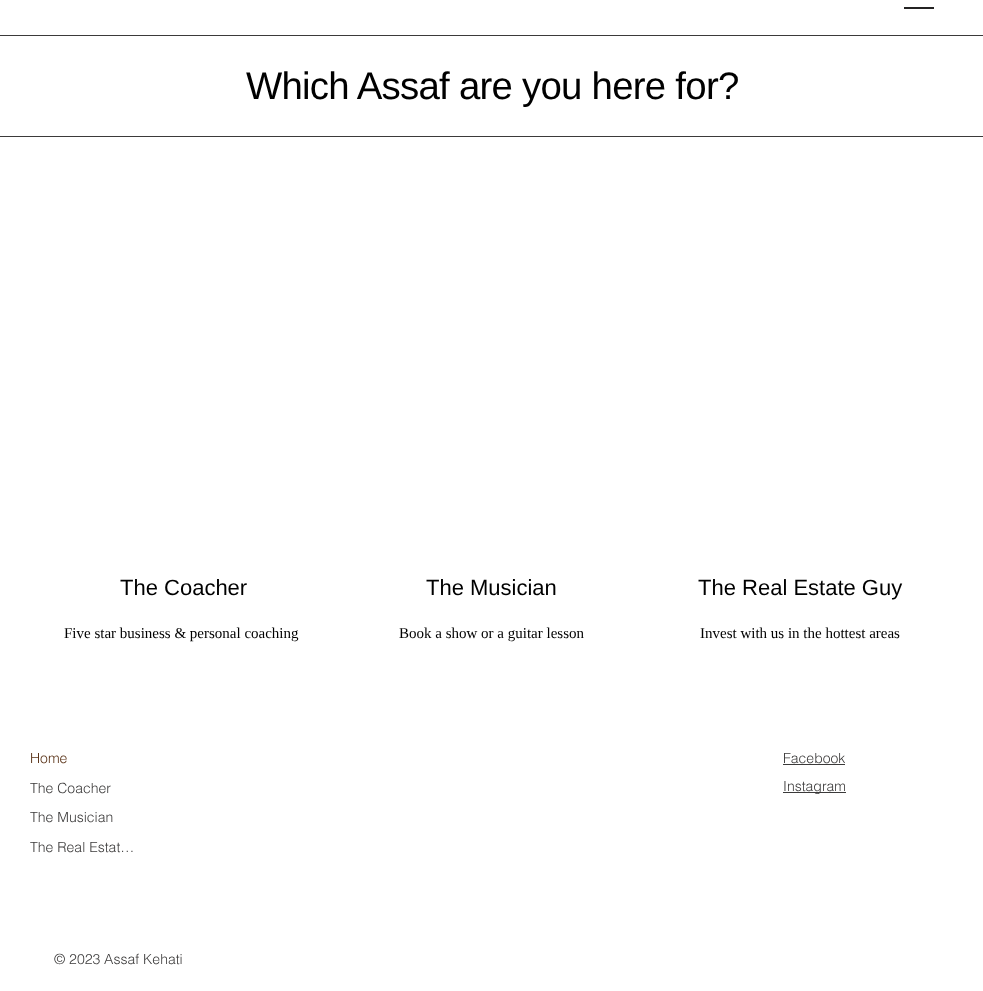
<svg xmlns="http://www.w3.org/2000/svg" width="983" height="991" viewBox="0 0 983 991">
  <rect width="100%" height="100%" fill="#ffffff"/>
  <rect x="904" y="7" width="30" height="2" fill="#242323"/>
  <rect x="0" y="35" width="983" height="1" fill="#3b3a3a"/>
  <text x="246" y="99" font-family="Liberation Sans" font-size="38.4" letter-spacing="-0.75" fill="#000000">Which Assaf are you here for?</text>
  <rect x="0" y="136" width="983" height="1" fill="#3b3a3a"/>
  <text x="120" y="595" font-family="Liberation Sans" font-size="22" fill="#000000">The Coacher</text>
  <text x="64" y="638" font-family="Liberation Serif" font-size="15" fill="#000000">Five star business &amp; personal coaching</text>
  <text x="426" y="595" font-family="Liberation Sans" font-size="22" fill="#000000">The Musician</text>
  <text x="399" y="638" font-family="Liberation Serif" font-size="15" fill="#000000">Book a show or a guitar lesson</text>
  <text x="698" y="595" font-family="Liberation Sans" font-size="22" fill="#000000">The Real Estate Guy</text>
  <text x="700" y="638" font-family="Liberation Serif" font-size="15" fill="#000000">Invest with us in the hottest areas</text>
  <text x="30" y="763" font-family="helvetica" font-size="14" font-weight="300" fill="#572f13">Home</text>
  <text x="30" y="793" font-family="helvetica" font-size="14" font-weight="300" fill="#3b3a3a">The Coacher</text>
  <text x="30" y="822" font-family="helvetica" font-size="14" font-weight="300" fill="#3b3a3a">The Musician</text>
  <text x="30" y="852" font-family="helvetica" font-size="14" font-weight="300" fill="#3b3a3a">The Real Estat…</text>
  <text x="783" y="763" font-family="helvetica" font-size="14" font-weight="300" fill="#3b3a3a">Facebook</text>
  <rect x="783" y="764" width="62" height="1" fill="#3b3a3a"/>
  <rect x="783" y="792" width="63" height="1" fill="#3b3a3a"/>
  <text x="783" y="791" font-family="helvetica" font-size="14" font-weight="300" fill="#3b3a3a">Instagram</text>
  <text x="54" y="964" font-family="helvetica" font-size="14" font-weight="300" fill="#3b3a3a">© 2023 Assaf Kehati</text>
</svg>
